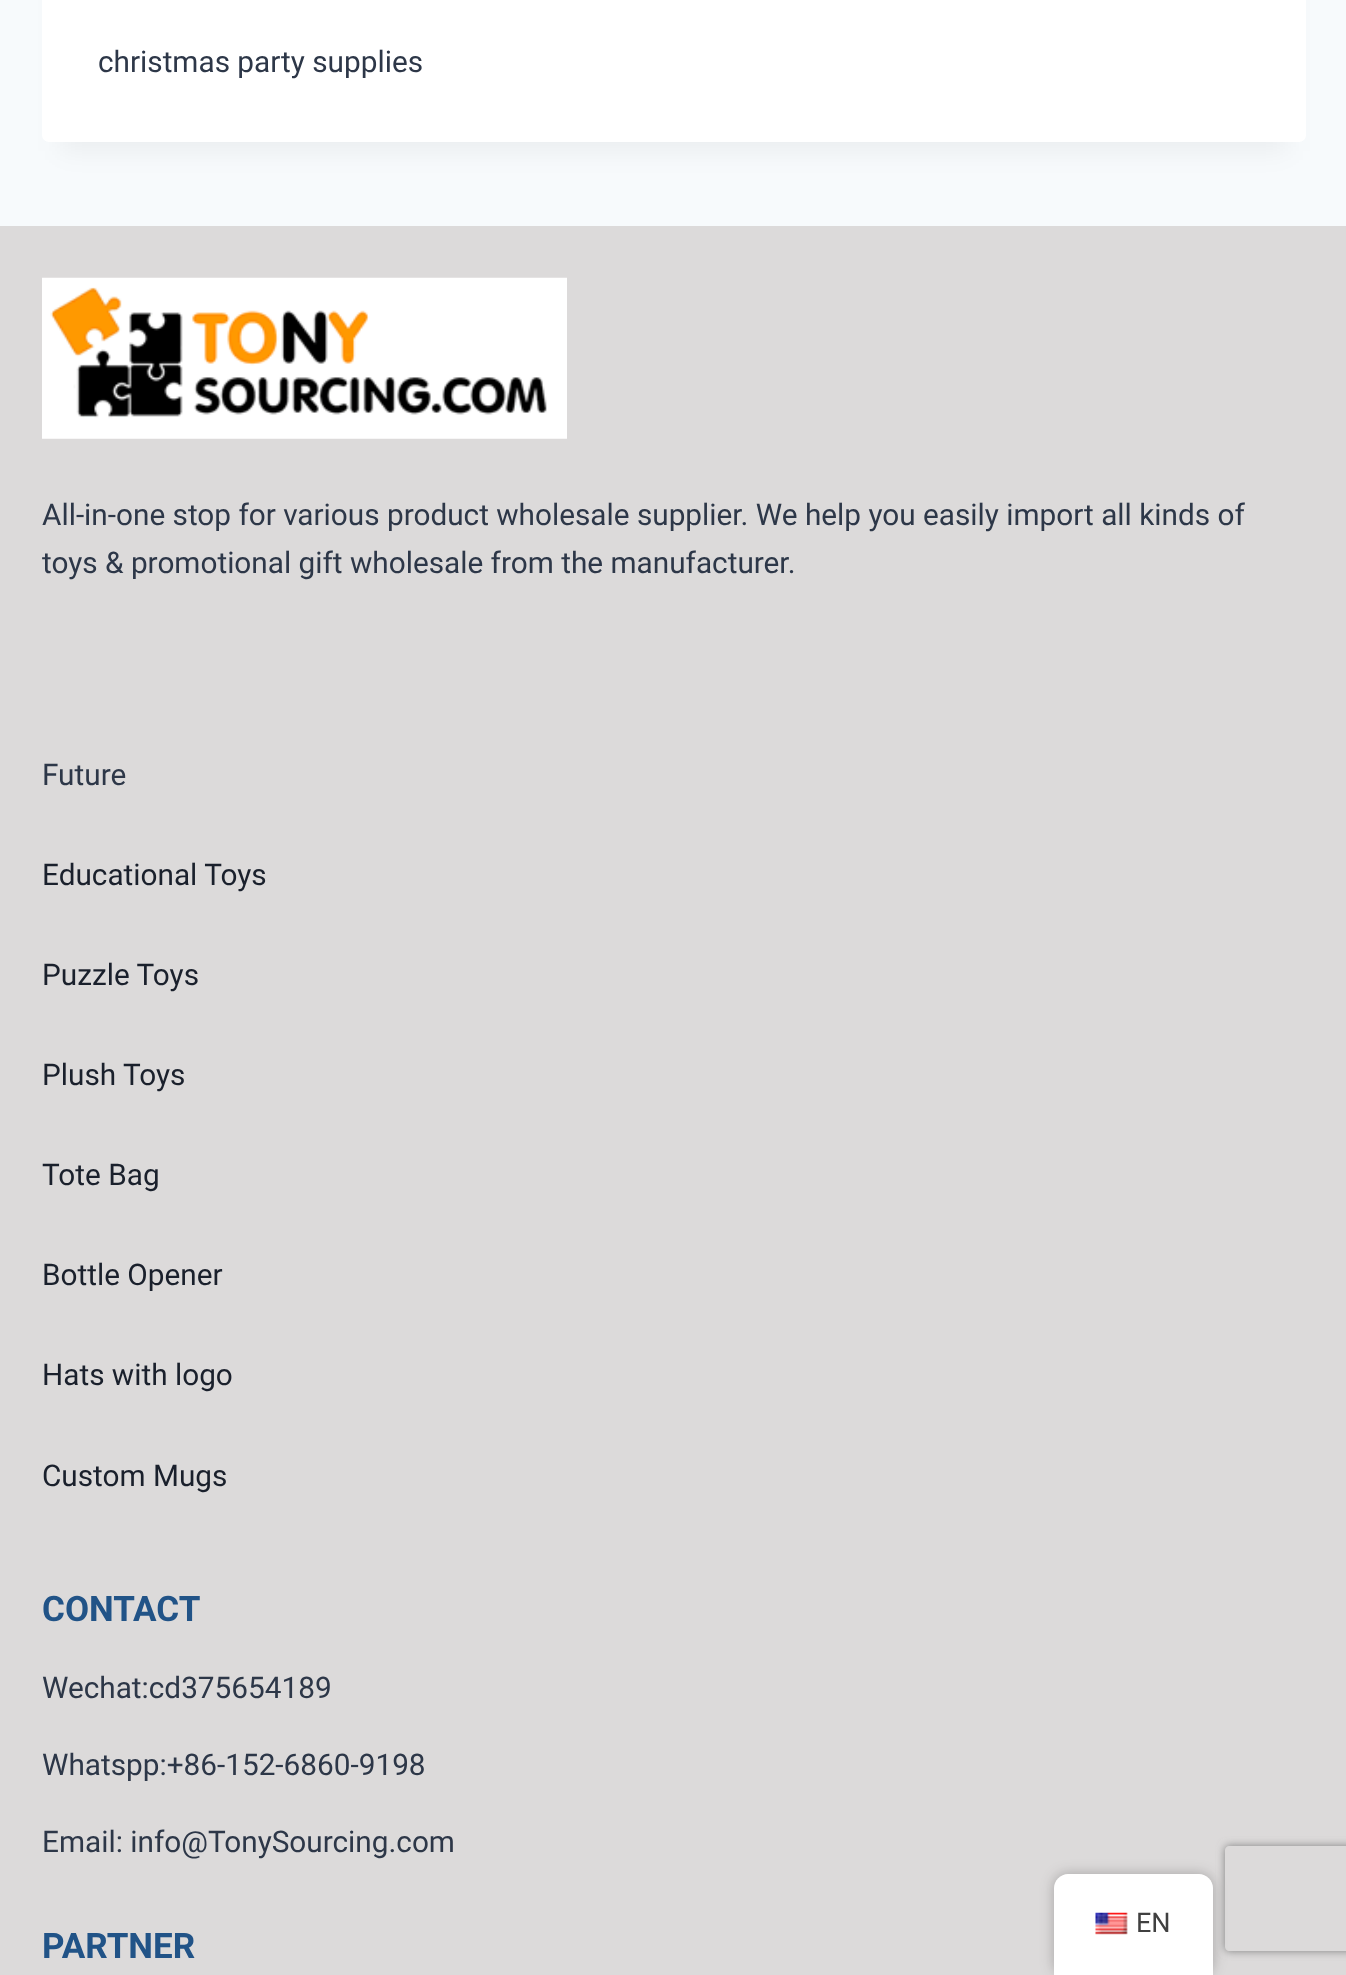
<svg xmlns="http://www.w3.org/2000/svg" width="1346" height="1975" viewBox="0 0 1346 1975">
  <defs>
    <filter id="blur1" x="-50%" y="-200%" width="200%" height="500%"><feGaussianBlur stdDeviation="13"/></filter>
    <clipPath id="clip1"><path d="M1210 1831H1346V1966H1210ZM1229 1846H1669C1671 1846 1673 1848 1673 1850V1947C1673 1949 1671 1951 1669 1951H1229C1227 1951 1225 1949 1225 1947V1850C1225 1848 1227 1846 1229 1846Z" clip-rule="evenodd"/></clipPath>
    <filter id="blur2" x="-50%" y="-200%" width="200%" height="500%"><feGaussianBlur stdDeviation="4.5"/></filter>
    <filter id="blur3" x="-50%" y="-200%" width="200%" height="500%"><feGaussianBlur stdDeviation="7"/></filter>
  </defs>
  <rect width="100%" height="100%" fill="#f7fafc"/>
  <rect x="60" y="-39" width="1228" height="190" fill="#000000" fill-opacity="0.05" filter="url(#blur1)"/>
  <rect x="42" y="-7" width="1264" height="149" rx="7" fill="#ffffff"/>
  <text x="98" y="72" font-family="Roboto" font-size="29.75" fill="#2d3748">christmas party supplies</text>
  <rect x="0" y="226" width="1346" height="1749" fill="#dcdada"/>
  <image x="42" y="277" width="525" height="162" href="img1.png"/>
  <text x="42" y="525" font-family="Roboto" font-size="29.75" fill="#2d3748">All-in-one stop for various product wholesale supplier. We help you easily import all kinds of</text>
  <text x="42" y="573" font-family="Roboto" font-size="29.75" fill="#2d3748">toys &amp; promotional gift wholesale from the manufacturer.</text>
  <text x="42" y="785" font-family="Roboto" font-size="29.75" fill="#2d3748">Future</text>
  <text x="42" y="885" font-family="Roboto" font-size="29.75" fill="#1a202c">Educational Toys</text>
  <text x="42" y="985" font-family="Roboto" font-size="29.75" fill="#1a202c">Puzzle Toys</text>
  <text x="42" y="1085" font-family="Roboto" font-size="29.75" fill="#1a202c">Plush Toys</text>
  <text x="42" y="1185" font-family="Roboto" font-size="29.75" fill="#1a202c">Tote Bag</text>
  <text x="42" y="1285" font-family="Roboto" font-size="29.75" fill="#1a202c">Bottle Opener</text>
  <text x="42" y="1385" font-family="Roboto" font-size="29.75" fill="#1a202c">Hats with logo</text>
  <text x="42" y="1486" font-family="Roboto" font-size="29.75" fill="#1a202c">Custom Mugs</text>
  <text x="42" y="1621" font-family="Roboto" font-size="35" font-weight="bold" fill="#215387">CONTACT</text>
  <text x="42" y="1698" font-family="Roboto" font-size="29.75" fill="#2d3748">Wechat:cd375654189</text>
  <text x="42" y="1775" font-family="Roboto" font-size="29.75" fill="#2d3748">Whatspp:+86-152-6860-9198</text>
  <text x="42" y="1852" font-family="Roboto" font-size="29.75" fill="#2d3748">Email: info@TonySourcing.com</text>
  <text x="42" y="1958" font-family="Roboto" font-size="35" font-weight="bold" fill="#215387">PARTNER</text>
  <g clip-path="url(#clip1)">
    <rect x="1225" y="1846" width="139" height="105" rx="4" fill="#808080" filter="url(#blur2)"/>
  </g>
  <rect x="1054" y="1874" width="159" height="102" rx="14" fill="#000000" fill-opacity="0.25" filter="url(#blur3)"/>
  <path d="M1068 1874H1199C1206.5 1874 1213 1880.5 1213 1888V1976H1054V1888C1054 1880.5 1060.5 1874 1068 1874Z" fill="#ffffff"/>
  <image x="1095" y="1912" width="33" height="23" href="img2.png"/>
  <text x="1136" y="1932" font-family="Roboto" font-size="27" fill="#404040">EN</text>
</svg>
